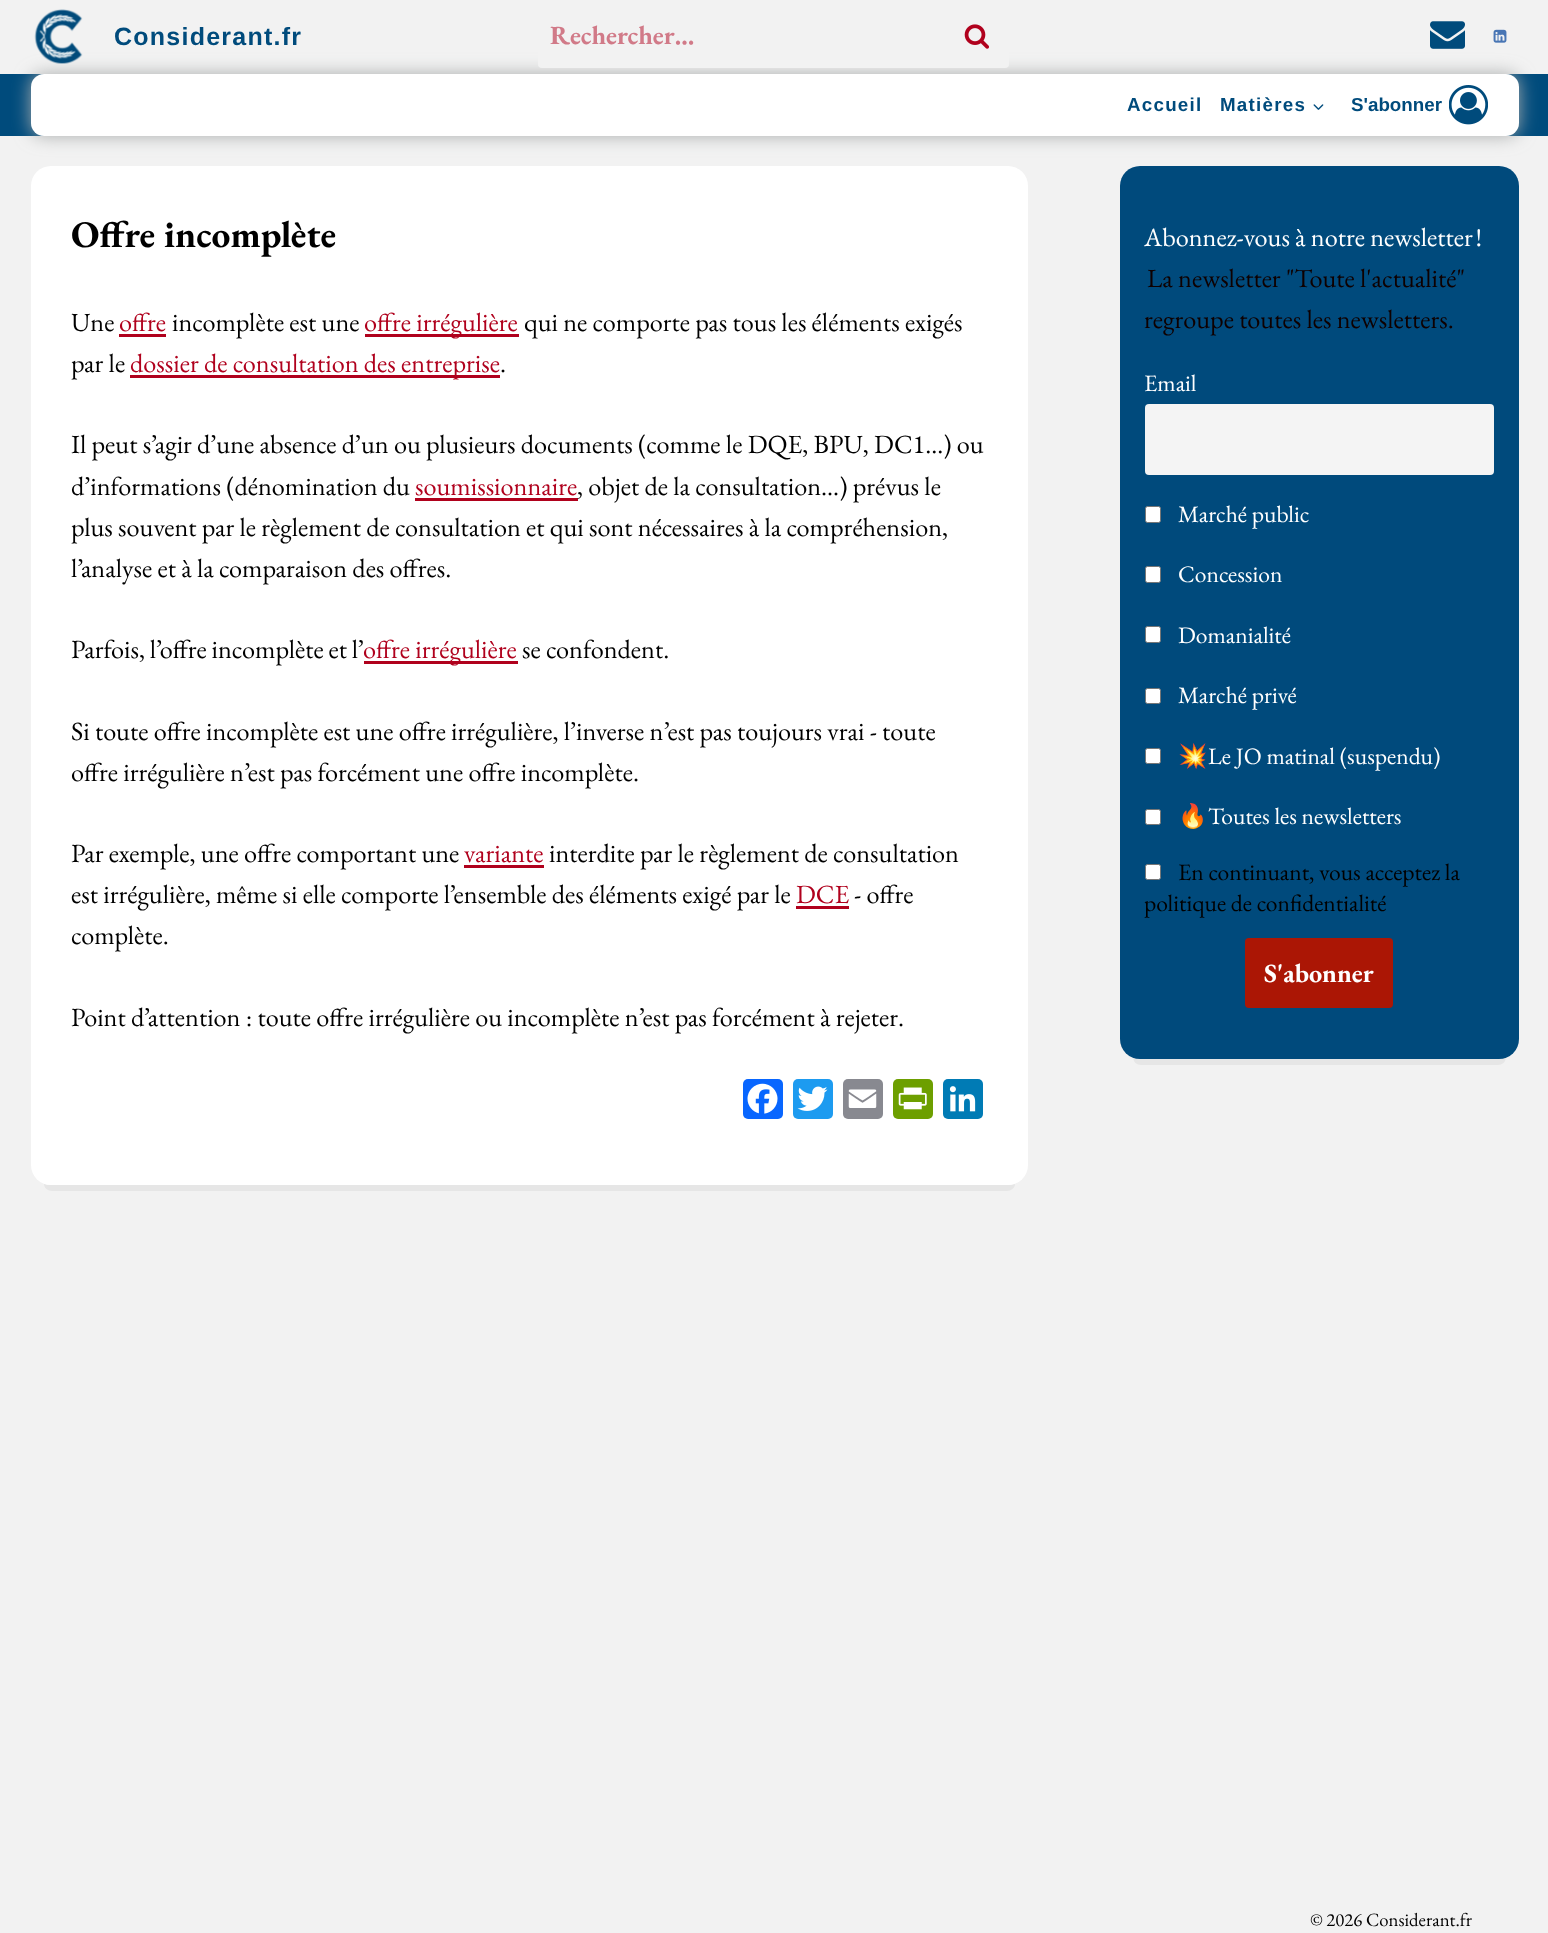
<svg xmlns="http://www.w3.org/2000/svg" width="1548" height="1933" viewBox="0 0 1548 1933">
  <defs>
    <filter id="blur1" x="-50%" y="-200%" width="200%" height="500%"><feGaussianBlur stdDeviation="9"/></filter>
  </defs>
  <rect width="100%" height="100%" fill="#f2f2f2"/>
  <rect x="0" y="74" width="1548" height="62" fill="#004b7c"/>
  <rect x="31" y="74" width="1488" height="62" rx="13" fill="#a9acac" filter="url(#blur1)"/>
  <image x="34" y="9" width="49" height="55" href="img1.png"/>
  <text x="114" y="45" font-family="Liberation Sans" font-size="25" font-weight="bold" letter-spacing="1.25" fill="#004b7c">Considerant.fr</text>
  <rect x="538" y="5" width="471" height="63" rx="4" fill="#f2f2f2"/>
  <text x="550" y="44" font-family="EB Garamond" font-size="26.25" font-weight="bold" fill="#d17a88">Rechercher…</text>
  <image x="964" y="24" width="25" height="25" href="img2.png"/>
  <image x="1430" y="21" width="35" height="28" href="img3.png"/>
  <image x="1493" y="29" width="14" height="14" href="img4.png"/>
  <rect x="31" y="74" width="1488" height="62" rx="13" fill="#ffffff"/>
  <text x="1127" y="111" font-family="Liberation Sans" font-size="18.75" font-weight="bold" letter-spacing="1.25" fill="#004b7c">Accueil</text>
  <text x="1220" y="111" font-family="Liberation Sans" font-size="18.75" font-weight="bold" letter-spacing="1.25" fill="#004b7c">Matières</text>
  <image x="1313" y="104" width="11" height="6" href="img5.png"/>
  <text x="1351" y="111" font-family="Liberation Sans" font-size="18.75" font-weight="bold" fill="#004b7c">S'abonner</text>
  <image x="1449" y="85" width="39" height="40" href="img6.png"/>
  <path d="M44 1184C44 1188 48 1191 52 1191H1007C1011 1191 1015 1188 1015 1184C1013 1184 1010 1185 1008 1185H51C49 1185 46 1185 44 1184Z" fill="#e6e6e6"/>
  <rect x="31" y="166" width="997" height="1019" rx="20" fill="#ffffff"/>
  <text x="71" y="247" font-family="EB Garamond" font-size="37.5" font-weight="bold" fill="#000000">Offre incomplète</text>
  <text x="71" y="331" font-family="EB Garamond" font-size="26.25" fill="#000000">Une</text>
  <text x="119" y="331" font-family="EB Garamond" font-size="26.25" fill="#b0011d">offre</text>
  <rect x="119" y="334" width="47" height="3" fill="#b0011d"/>
  <text x="172" y="331" font-family="EB Garamond" font-size="26.25" fill="#000000">incomplète est une</text>
  <rect x="365" y="334" width="154" height="3" fill="#b0011d"/>
  <text x="364" y="331" font-family="EB Garamond" font-size="26.25" fill="#b0011d">offre irrégulière</text>
  <text x="524" y="331" font-family="EB Garamond" font-size="26.25" fill="#000000">qui ne comporte pas tous les éléments exigés</text>
  <text x="71" y="372" font-family="EB Garamond" font-size="26.25" fill="#000000">par le</text>
  <rect x="130" y="375" width="370" height="3" fill="#b0011d"/>
  <text x="130" y="372" font-family="EB Garamond" font-size="26.25" fill="#b0011d">dossier de consultation des entreprise</text>
  <text x="500" y="372" font-family="EB Garamond" font-size="26.25" fill="#000000">.</text>
  <text x="71" y="453" font-family="EB Garamond" font-size="26.25" fill="#000000">Il peut s’agir d’une absence d’un ou plusieurs documents (comme le DQE, BPU, DC1…) ou</text>
  <text x="71" y="495" font-family="EB Garamond" font-size="26.25" fill="#000000">d’informations (dénomination du</text>
  <text x="415" y="495" font-family="EB Garamond" font-size="26.25" fill="#b0011d">soumissionnaire</text>
  <rect x="415" y="498" width="163" height="3" fill="#b0011d"/>
  <text x="577" y="495" font-family="EB Garamond" font-size="26.25" fill="#000000">, objet de la consultation…) prévus le</text>
  <text x="71" y="536" font-family="EB Garamond" font-size="26.25" fill="#000000">plus souvent par le règlement de consultation et qui sont nécessaires à la compréhension,</text>
  <text x="71" y="577" font-family="EB Garamond" font-size="26.25" fill="#000000">l’analyse et à la comparaison des offres.</text>
  <text x="71" y="658" word-spacing="-0.5" font-family="EB Garamond" font-size="26.25" fill="#000000">Parfois, l’offre incomplète et l’</text>
  <rect x="364" y="661" width="154" height="3" fill="#b0011d"/>
  <text x="363" y="658" font-family="EB Garamond" font-size="26.25" fill="#b0011d">offre irrégulière</text>
  <text x="522" y="658" font-family="EB Garamond" font-size="26.25" fill="#000000">se confondent.</text>
  <text x="71" y="740" font-family="EB Garamond" font-size="26.25" fill="#000000">Si toute offre incomplète est une offre irrégulière, l’inverse n’est pas toujours vrai - toute</text>
  <text x="71" y="781" font-family="EB Garamond" font-size="26.25" fill="#000000">offre irrégulière n’est pas forcément une offre incomplète.</text>
  <text x="71" y="862" font-family="EB Garamond" font-size="26.25" fill="#000000">Par exemple, une offre comportant une</text>
  <text x="464" y="862" font-family="EB Garamond" font-size="26.25" fill="#b0011d">variante</text>
  <rect x="464" y="865" width="80" height="3" fill="#b0011d"/>
  <text x="549" y="862" font-family="EB Garamond" font-size="26.25" fill="#000000">interdite par le règlement de consultation</text>
  <text x="71" y="903" font-family="EB Garamond" font-size="26.25" fill="#000000">est irrégulière, même si elle comporte l’ensemble des éléments exigé par le</text>
  <text x="796" y="903" font-family="EB Garamond" font-size="26.25" fill="#b0011d">DCE</text>
  <rect x="796" y="906" width="53" height="3" fill="#b0011d"/>
  <text x="854" y="903" font-family="EB Garamond" font-size="26.25" fill="#000000">- offre</text>
  <text x="71" y="944" font-family="EB Garamond" font-size="26.25" fill="#000000">complète.</text>
  <text x="71" y="1026" font-family="EB Garamond" font-size="26.25" fill="#000000">Point d’attention : toute offre irrégulière ou incomplète n’est pas forcément à rejeter.</text>
  <rect x="743" y="1079" width="40" height="40" rx="5" fill="#0866ff"/>
  <image x="747" y="1083" width="31" height="31" href="img7.png"/>
  <rect x="793" y="1079" width="40" height="40" rx="5" fill="#1d9bf0"/>
  <image x="797" y="1086" width="31" height="25" href="img8.png"/>
  <rect x="843" y="1079" width="40" height="40" rx="5" fill="#888990"/>
  <image x="848" y="1089" width="29" height="19" href="img9.png"/>
  <rect x="893" y="1079" width="40" height="40" rx="5" fill="#6d9f00"/>
  <image x="898" y="1087" width="29" height="23" href="img10.png"/>
  <rect x="943" y="1079" width="40" height="40" rx="5" fill="#007bb5"/>
  <image x="949" y="1086" width="27" height="26" href="img11.png"/>
  <path d="M1133 1057C1133 1062 1137 1065 1141 1065H1498C1502 1065 1506 1062 1506 1057C1504 1058 1501 1059 1499 1059H1140C1138 1059 1135 1058 1133 1057Z" fill="#e6e6e6"/>
  <rect x="1120" y="166" width="399" height="893" rx="20" fill="#004a7c"/>
  <text x="1144" y="246" font-family="EB Garamond" font-size="26.25" fill="#ffffff">Abonnez-vous à notre newsletter !</text>
  <text x="1147" y="287" font-family="EB Garamond" font-size="26.25" fill="#0e0000">La newsletter "Toute l'actualité"</text>
  <text x="1144" y="328" font-family="EB Garamond" font-size="26.25" fill="#0e0000">regroupe toutes les newsletters.</text>
  <text x="1144" y="391" font-family="EB Garamond" font-size="23.6" fill="#ffffff">Email</text>
  <rect x="1145" y="404" width="349" height="71" rx="4" fill="#f4f4f4"/>
  <rect x="1145.5" y="506.5" width="15" height="16" rx="2" fill="#ffffff" stroke="#767676"/>
  <text x="1178" y="522" font-family="EB Garamond" font-size="23.6" fill="#ffffff">Marché public</text>
  <rect x="1145.5" y="566.5" width="15" height="16" rx="2" fill="#ffffff" stroke="#767676"/>
  <text x="1178" y="582" font-family="EB Garamond" font-size="23.6" fill="#ffffff">Concession</text>
  <rect x="1145.5" y="626.5" width="15" height="16" rx="2" fill="#ffffff" stroke="#767676"/>
  <text x="1178" y="643" font-family="EB Garamond" font-size="23.6" fill="#ffffff">Domanialité</text>
  <rect x="1145.5" y="688.5" width="15" height="15" rx="2" fill="#ffffff" stroke="#767676"/>
  <text x="1178" y="703" font-family="EB Garamond" font-size="23.6" fill="#ffffff">Marché privé</text>
  <rect x="1145.5" y="748.5" width="15" height="15" rx="2" fill="#ffffff" stroke="#767676"/>
  <text x="1178" y="764" font-family="Noto Color Emoji" font-size="23.6" fill="#ffffff">💥</text>
  <text x="1208" y="764" font-family="EB Garamond" font-size="23.6" fill="#ffffff">Le JO matinal (suspendu)</text>
  <rect x="1145.5" y="809.5" width="15" height="15" rx="2" fill="#ffffff" stroke="#767676"/>
  <text x="1178" y="824" font-family="Noto Color Emoji" font-size="23.6" fill="#ffffff">🔥</text>
  <text x="1208" y="824" font-family="EB Garamond" font-size="23.6" fill="#ffffff">Toutes les newsletters</text>
  <rect x="1145.5" y="864.5" width="15" height="15" rx="2" fill="#ffffff" stroke="#767676"/>
  <text x="1178" y="880" font-family="EB Garamond" font-size="23.6" fill="#000000">En continuant, vous acceptez la</text>
  <text x="1144" y="911" font-family="EB Garamond" font-size="23.6" fill="#000000">politique de confidentialité</text>
  <rect x="1245" y="938" width="148" height="70" rx="4" fill="#ab1605"/>
  <text x="1264" y="982" font-family="EB Garamond" font-size="26.25" font-weight="bold" fill="#ffffff">S'abonner</text>
  <text x="1310" y="1926" font-family="EB Garamond" font-size="18.75" fill="#000000">© 2026 Considerant.fr</text>
</svg>
